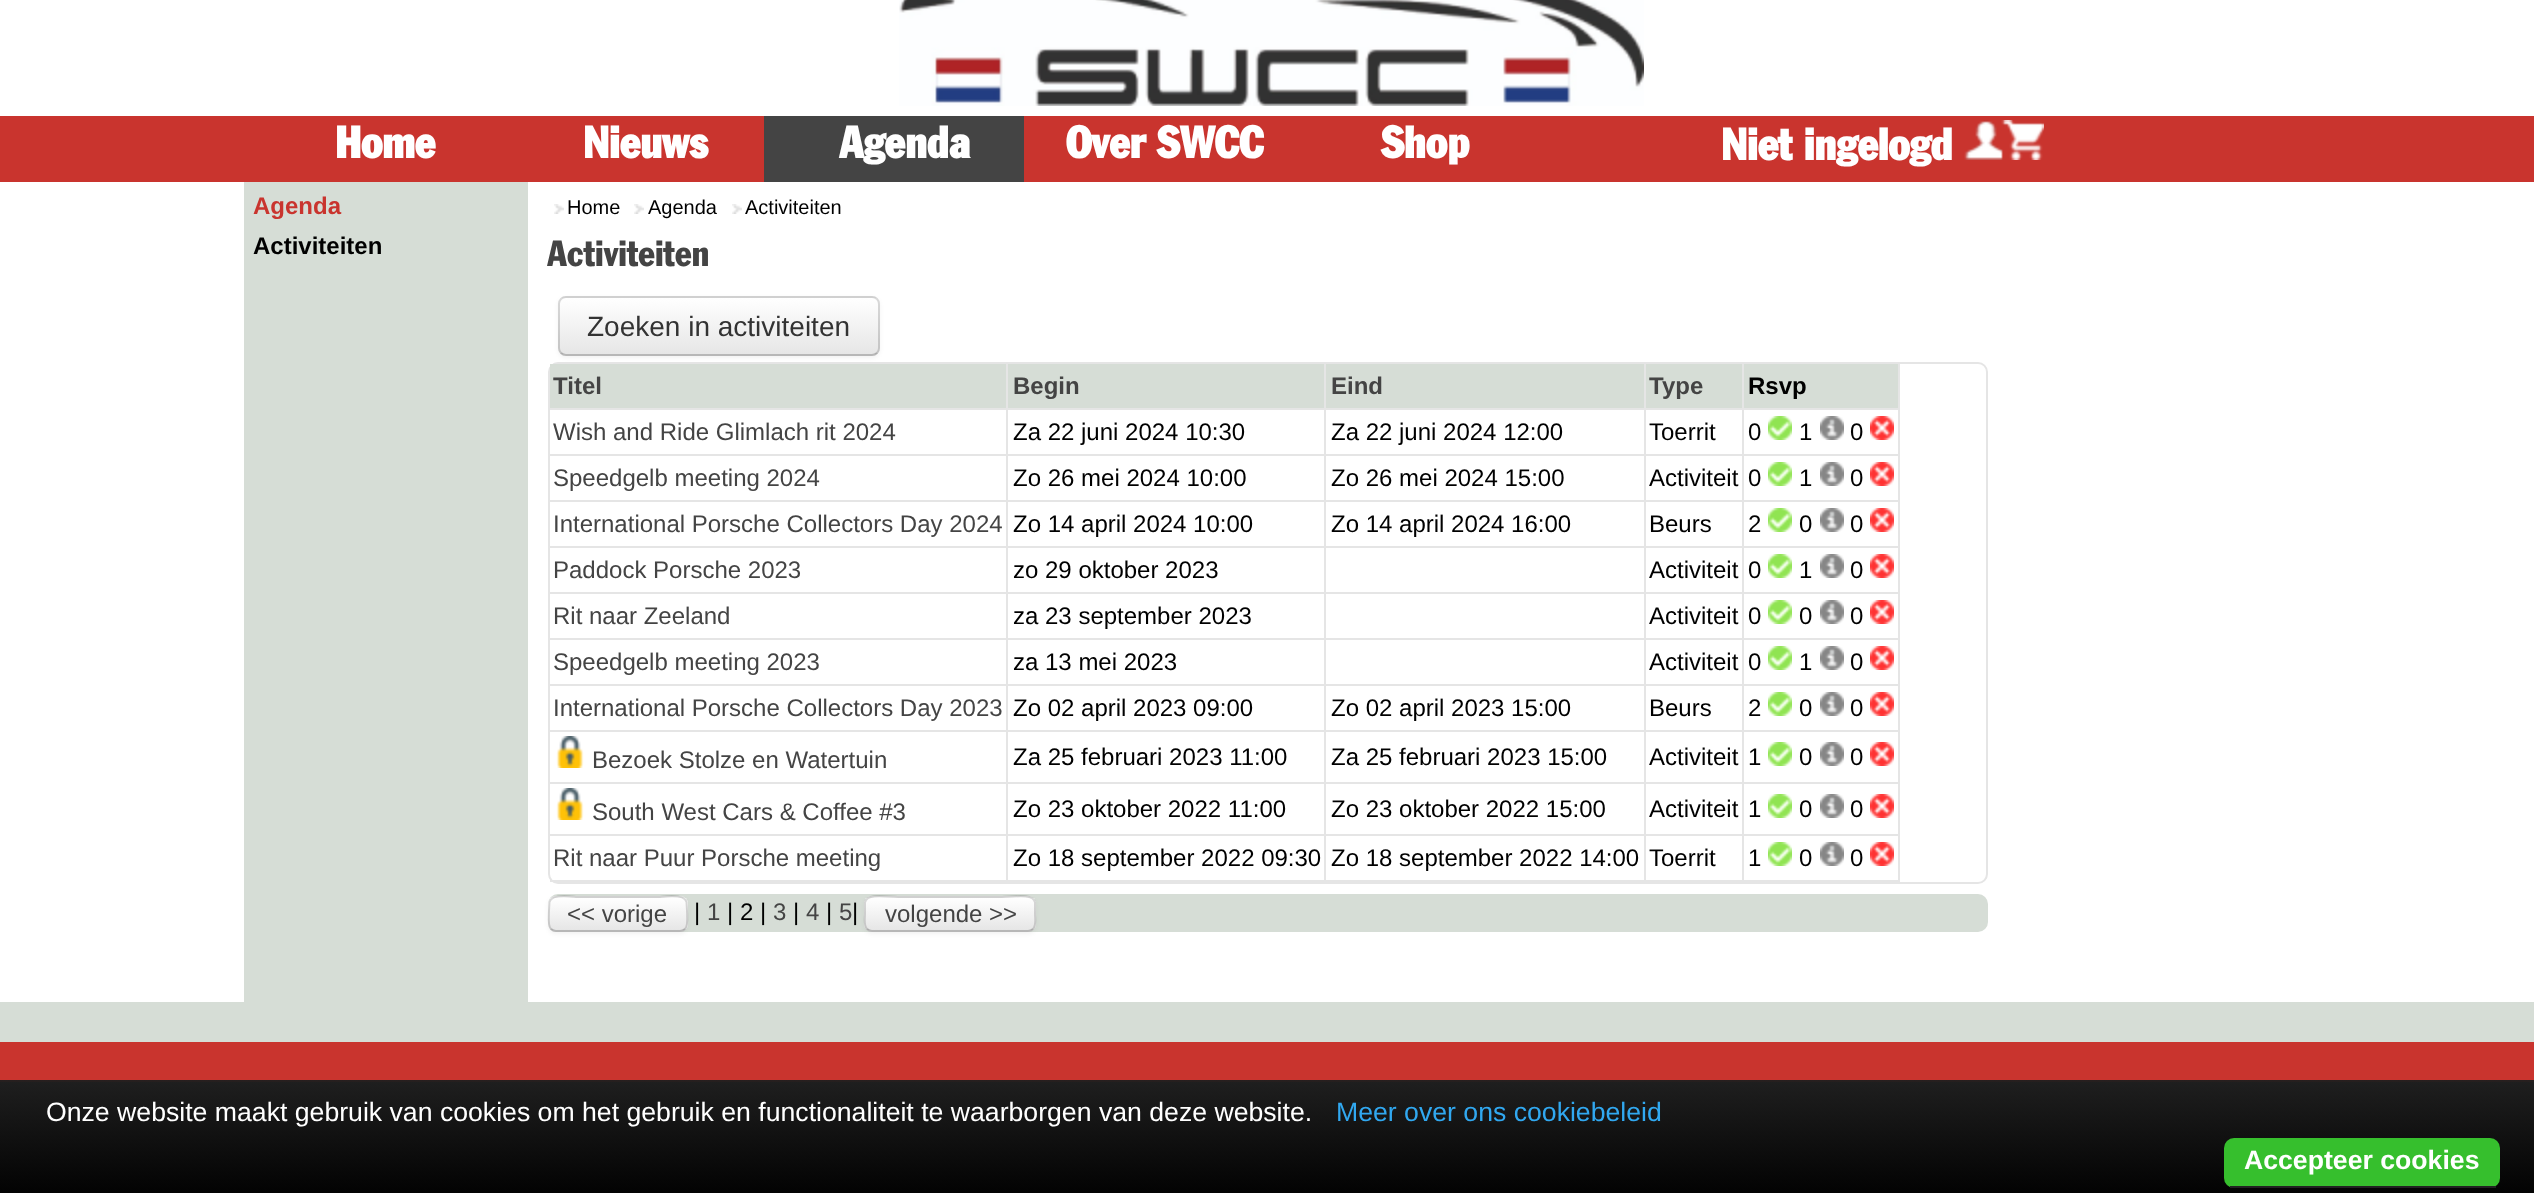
<svg xmlns="http://www.w3.org/2000/svg" width="2534" height="1193" viewBox="0 0 2534 1193">
  <defs>
    <filter id="blur1" x="-50%" y="-200%" width="200%" height="500%"><feGaussianBlur stdDeviation="2"/></filter>
    <clipPath id="clip1"><rect x="558" y="296" width="322" height="60" rx="8"/></clipPath>
    <linearGradient id="g1" gradientUnits="userSpaceOnUse" x1="719" y1="298" x2="719" y2="354"><stop offset="0" stop-color="#ffffff"/><stop offset="1" stop-color="#e6e6e6"/></linearGradient>
    <clipPath id="clip2"><rect x="548" y="896" width="140" height="36" rx="8"/></clipPath>
    <linearGradient id="g2" gradientUnits="userSpaceOnUse" x1="618" y1="898" x2="618" y2="930"><stop offset="0" stop-color="#ffffff"/><stop offset="1" stop-color="#e6e6e6"/></linearGradient>
    <clipPath id="clip3"><rect x="864" y="896" width="172" height="36" rx="8"/></clipPath>
    <linearGradient id="g3" gradientUnits="userSpaceOnUse" x1="950" y1="898" x2="950" y2="930"><stop offset="0" stop-color="#ffffff"/><stop offset="1" stop-color="#e6e6e6"/></linearGradient>
    <linearGradient id="g4" gradientUnits="userSpaceOnUse" x1="1273" y1="1080" x2="1273" y2="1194"><stop offset="0" stop-color="#1e1e1e" stop-opacity="0.95"/><stop offset="1" stop-color="#000000" stop-opacity="0.95"/></linearGradient>
  </defs>
  <rect width="100%" height="100%" fill="#ffffff"/>
  <image x="899" y="0" width="745" height="106" href="img1.png"/>
  <rect x="0" y="116" width="2534" height="66" fill="#c9342e"/>
  <text x="335" y="158" font-family="'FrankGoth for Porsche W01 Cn'" font-size="44" font-weight="bold" fill="#ffffff">Home</text>
  <text x="583" y="158" font-family="'FrankGoth for Porsche W01 Cn'" font-size="44" font-weight="bold" fill="#ffffff">Nieuws</text>
  <rect x="764" y="116" width="260" height="66" fill="#444444"/>
  <text x="839" y="158" font-family="'FrankGoth for Porsche W01 Cn'" font-size="44" font-weight="bold" fill="#ffffff">Agenda</text>
  <text x="1066" y="158" font-family="'FrankGoth for Porsche W01 Cn'" font-size="44" font-weight="bold" fill="#ffffff">Over SWCC</text>
  <text x="1381" y="158" font-family="'FrankGoth for Porsche W01 Cn'" font-size="44" font-weight="bold" fill="#ffffff">Shop</text>
  <text x="1721" y="160" font-family="'FrankGoth for Porsche W01 Cn'" font-size="44" font-weight="bold" fill="#ffffff">Niet ingelogd</text>
  <image x="1964" y="120" width="80" height="40" href="img2.png"/>
  <rect x="244" y="182" width="284" height="820" fill="#d6ddd6"/>
  <text x="253" y="214" font-family="Liberation Sans" font-size="24" font-weight="bold" fill="#c9342e">Agenda</text>
  <text x="253" y="254" font-family="Liberation Sans" font-size="24" font-weight="bold" fill="#000000">Activiteiten</text>
  <image x="554" y="204" width="10" height="10" href="img3.png"/>
  <text x="567" y="214" font-family="Liberation Sans" font-size="20" fill="#000000">Home</text>
  <image x="634" y="204" width="10" height="10" href="img3.png"/>
  <text x="648" y="214" font-family="Liberation Sans" font-size="20" fill="#000000">Agenda</text>
  <image x="732" y="204" width="10" height="10" href="img3.png"/>
  <text x="745" y="214" font-family="Liberation Sans" font-size="20" fill="#000000">Activiteiten</text>
  <text x="547" y="266" font-family="'FrankGoth for Porsche W01 Cn'" font-size="36" fill="#444444">Activiteiten</text>
  <rect x="558" y="298" width="322" height="60" rx="8" fill="#000000" fill-opacity="0.05" filter="url(#blur1)"/>
  <rect x="558" y="296" width="322" height="60" rx="8" fill="#f5f5f5"/>
  <g clip-path="url(#clip1)">
    <rect x="558" y="298" width="322" height="56" fill="url(#g1)"/>
  </g>
  <path d="M877 353C875.5 354.5 874 355 872 355H566C564 355 562.5 354.5 561 353" fill="none" stroke="#000000" stroke-opacity="0.25" stroke-width="2"/>
  <path d="M561 353C559.5 351.5 559 350 559 348V304C559 302 559.5 300.5 561 299C562.5 297.5 564 297 566 297H872C874 297 875.5 297.5 877 299C878.5 300.5 879 302 879 304V348C879 350 878.5 351.5 877 353" fill="none" stroke="#000000" stroke-opacity="0.15" stroke-width="2"/>
  <text x="587" y="336" font-family="Liberation Sans" font-size="28" fill="#333333">Zoeken in activiteiten</text>
  <rect x="549" y="363" width="1438" height="520" rx="9" fill="none" stroke="#e5e5e5" stroke-width="2"/>
  <rect x="550" y="364" width="456" height="44" fill="#d6ddd6"/>
  <rect x="1006" y="364" width="2" height="46" fill="#e5e5e5"/>
  <rect x="550" y="408" width="458" height="2" fill="#e5e5e5"/>
  <text x="553" y="394" font-family="Liberation Sans" font-size="24" font-weight="bold" fill="#444444">Titel</text>
  <rect x="1008" y="364" width="316" height="44" fill="#d6ddd6"/>
  <rect x="1324" y="364" width="2" height="46" fill="#e5e5e5"/>
  <rect x="1008" y="408" width="318" height="2" fill="#e5e5e5"/>
  <text x="1013" y="394" font-family="Liberation Sans" font-size="24" font-weight="bold" fill="#444444">Begin</text>
  <rect x="1326" y="364" width="318" height="44" fill="#d6ddd6"/>
  <rect x="1644" y="364" width="2" height="46" fill="#e5e5e5"/>
  <rect x="1326" y="408" width="320" height="2" fill="#e5e5e5"/>
  <text x="1331" y="394" font-family="Liberation Sans" font-size="24" font-weight="bold" fill="#444444">Eind</text>
  <rect x="1646" y="364" width="96" height="44" fill="#d6ddd6"/>
  <rect x="1742" y="364" width="2" height="46" fill="#e5e5e5"/>
  <rect x="1646" y="408" width="98" height="2" fill="#e5e5e5"/>
  <text x="1649" y="394" font-family="Liberation Sans" font-size="24" font-weight="bold" fill="#444444">Type</text>
  <rect x="1744" y="364" width="154" height="44" fill="#d6ddd6"/>
  <rect x="1898" y="364" width="2" height="518" fill="#e5e5e5"/>
  <rect x="1744" y="408" width="156" height="2" fill="#e5e5e5"/>
  <text x="1748" y="394" font-family="Liberation Sans" font-size="24" font-weight="bold" fill="#000000">Rsvp</text>
  <rect x="550" y="454" width="1350" height="2" fill="#e5e5e5"/>
  <rect x="1006" y="410" width="2" height="46" fill="#e5e5e5"/>
  <text x="553" y="440" font-family="Liberation Sans" font-size="24" fill="#444444">Wish and Ride Glimlach rit 2024</text>
  <rect x="1324" y="410" width="2" height="46" fill="#e5e5e5"/>
  <text x="1013" y="440" font-family="Liberation Sans" font-size="24" fill="#000000">Za 22 juni 2024 10:30</text>
  <rect x="1644" y="410" width="2" height="46" fill="#e5e5e5"/>
  <text x="1331" y="440" font-family="Liberation Sans" font-size="24" fill="#000000">Za 22 juni 2024 12:00</text>
  <rect x="1742" y="410" width="2" height="46" fill="#e5e5e5"/>
  <text x="1649" y="440" font-family="Liberation Sans" font-size="24" fill="#000000">Toerrit</text>
  <text x="1748" y="440" font-family="Liberation Sans" font-size="24" fill="#000000">0</text>
  <image x="1768" y="416" width="24" height="24" href="img4.png"/>
  <text x="1799" y="440" font-family="Liberation Sans" font-size="24" fill="#000000">1</text>
  <image x="1820" y="416" width="24" height="24" href="img5.png"/>
  <text x="1850" y="440" font-family="Liberation Sans" font-size="24" fill="#000000">0</text>
  <image x="1870" y="416" width="24" height="24" href="img6.png"/>
  <rect x="550" y="500" width="1350" height="2" fill="#e5e5e5"/>
  <rect x="1006" y="456" width="2" height="46" fill="#e5e5e5"/>
  <text x="553" y="486" font-family="Liberation Sans" font-size="24" fill="#444444">Speedgelb meeting 2024</text>
  <rect x="1324" y="456" width="2" height="46" fill="#e5e5e5"/>
  <text x="1013" y="486" font-family="Liberation Sans" font-size="24" fill="#000000">Zo 26 mei 2024 10:00</text>
  <rect x="1644" y="456" width="2" height="46" fill="#e5e5e5"/>
  <text x="1331" y="486" font-family="Liberation Sans" font-size="24" fill="#000000">Zo 26 mei 2024 15:00</text>
  <rect x="1742" y="456" width="2" height="46" fill="#e5e5e5"/>
  <text x="1649" y="486" font-family="Liberation Sans" font-size="24" fill="#000000">Activiteit</text>
  <text x="1748" y="486" font-family="Liberation Sans" font-size="24" fill="#000000">0</text>
  <image x="1768" y="462" width="24" height="24" href="img4.png"/>
  <text x="1799" y="486" font-family="Liberation Sans" font-size="24" fill="#000000">1</text>
  <image x="1820" y="462" width="24" height="24" href="img5.png"/>
  <text x="1850" y="486" font-family="Liberation Sans" font-size="24" fill="#000000">0</text>
  <image x="1870" y="462" width="24" height="24" href="img6.png"/>
  <rect x="550" y="546" width="1350" height="2" fill="#e5e5e5"/>
  <rect x="1006" y="502" width="2" height="46" fill="#e5e5e5"/>
  <text x="553" y="532" font-family="Liberation Sans" font-size="24" fill="#444444">International Porsche Collectors Day 2024</text>
  <rect x="1324" y="502" width="2" height="46" fill="#e5e5e5"/>
  <text x="1013" y="532" font-family="Liberation Sans" font-size="24" fill="#000000">Zo 14 april 2024 10:00</text>
  <rect x="1644" y="502" width="2" height="46" fill="#e5e5e5"/>
  <text x="1331" y="532" font-family="Liberation Sans" font-size="24" fill="#000000">Zo 14 april 2024 16:00</text>
  <rect x="1742" y="502" width="2" height="46" fill="#e5e5e5"/>
  <text x="1649" y="532" font-family="Liberation Sans" font-size="24" fill="#000000">Beurs</text>
  <text x="1748" y="532" font-family="Liberation Sans" font-size="24" fill="#000000">2</text>
  <image x="1768" y="508" width="24" height="24" href="img4.png"/>
  <text x="1799" y="532" font-family="Liberation Sans" font-size="24" fill="#000000">0</text>
  <image x="1820" y="508" width="24" height="24" href="img5.png"/>
  <text x="1850" y="532" font-family="Liberation Sans" font-size="24" fill="#000000">0</text>
  <image x="1870" y="508" width="24" height="24" href="img6.png"/>
  <rect x="550" y="592" width="1350" height="2" fill="#e5e5e5"/>
  <rect x="1006" y="548" width="2" height="46" fill="#e5e5e5"/>
  <text x="553" y="578" font-family="Liberation Sans" font-size="24" fill="#444444">Paddock Porsche 2023</text>
  <rect x="1324" y="548" width="2" height="46" fill="#e5e5e5"/>
  <text x="1013" y="578" font-family="Liberation Sans" font-size="24" fill="#000000">zo 29 oktober 2023</text>
  <rect x="1644" y="548" width="2" height="46" fill="#e5e5e5"/>
  <rect x="1742" y="548" width="2" height="46" fill="#e5e5e5"/>
  <text x="1649" y="578" font-family="Liberation Sans" font-size="24" fill="#000000">Activiteit</text>
  <text x="1748" y="578" font-family="Liberation Sans" font-size="24" fill="#000000">0</text>
  <image x="1768" y="554" width="24" height="24" href="img4.png"/>
  <text x="1799" y="578" font-family="Liberation Sans" font-size="24" fill="#000000">1</text>
  <image x="1820" y="554" width="24" height="24" href="img5.png"/>
  <text x="1850" y="578" font-family="Liberation Sans" font-size="24" fill="#000000">0</text>
  <image x="1870" y="554" width="24" height="24" href="img6.png"/>
  <rect x="550" y="638" width="1350" height="2" fill="#e5e5e5"/>
  <rect x="1006" y="594" width="2" height="46" fill="#e5e5e5"/>
  <text x="553" y="624" font-family="Liberation Sans" font-size="24" fill="#444444">Rit naar Zeeland</text>
  <rect x="1324" y="594" width="2" height="46" fill="#e5e5e5"/>
  <text x="1013" y="624" font-family="Liberation Sans" font-size="24" fill="#000000">za 23 september 2023</text>
  <rect x="1644" y="594" width="2" height="46" fill="#e5e5e5"/>
  <rect x="1742" y="594" width="2" height="46" fill="#e5e5e5"/>
  <text x="1649" y="624" font-family="Liberation Sans" font-size="24" fill="#000000">Activiteit</text>
  <text x="1748" y="624" font-family="Liberation Sans" font-size="24" fill="#000000">0</text>
  <image x="1768" y="600" width="24" height="24" href="img4.png"/>
  <text x="1799" y="624" font-family="Liberation Sans" font-size="24" fill="#000000">0</text>
  <image x="1820" y="600" width="24" height="24" href="img5.png"/>
  <text x="1850" y="624" font-family="Liberation Sans" font-size="24" fill="#000000">0</text>
  <image x="1870" y="600" width="24" height="24" href="img6.png"/>
  <rect x="550" y="684" width="1350" height="2" fill="#e5e5e5"/>
  <rect x="1006" y="640" width="2" height="46" fill="#e5e5e5"/>
  <text x="553" y="670" font-family="Liberation Sans" font-size="24" fill="#444444">Speedgelb meeting 2023</text>
  <rect x="1324" y="640" width="2" height="46" fill="#e5e5e5"/>
  <text x="1013" y="670" font-family="Liberation Sans" font-size="24" fill="#000000">za 13 mei 2023</text>
  <rect x="1644" y="640" width="2" height="46" fill="#e5e5e5"/>
  <rect x="1742" y="640" width="2" height="46" fill="#e5e5e5"/>
  <text x="1649" y="670" font-family="Liberation Sans" font-size="24" fill="#000000">Activiteit</text>
  <text x="1748" y="670" font-family="Liberation Sans" font-size="24" fill="#000000">0</text>
  <image x="1768" y="646" width="24" height="24" href="img4.png"/>
  <text x="1799" y="670" font-family="Liberation Sans" font-size="24" fill="#000000">1</text>
  <image x="1820" y="646" width="24" height="24" href="img5.png"/>
  <text x="1850" y="670" font-family="Liberation Sans" font-size="24" fill="#000000">0</text>
  <image x="1870" y="646" width="24" height="24" href="img6.png"/>
  <rect x="550" y="730" width="1350" height="2" fill="#e5e5e5"/>
  <rect x="1006" y="686" width="2" height="46" fill="#e5e5e5"/>
  <text x="553" y="716" font-family="Liberation Sans" font-size="24" fill="#444444">International Porsche Collectors Day 2023</text>
  <rect x="1324" y="686" width="2" height="46" fill="#e5e5e5"/>
  <text x="1013" y="716" font-family="Liberation Sans" font-size="24" fill="#000000">Zo 02 april 2023 09:00</text>
  <rect x="1644" y="686" width="2" height="46" fill="#e5e5e5"/>
  <text x="1331" y="716" font-family="Liberation Sans" font-size="24" fill="#000000">Zo 02 april 2023 15:00</text>
  <rect x="1742" y="686" width="2" height="46" fill="#e5e5e5"/>
  <text x="1649" y="716" font-family="Liberation Sans" font-size="24" fill="#000000">Beurs</text>
  <text x="1748" y="716" font-family="Liberation Sans" font-size="24" fill="#000000">2</text>
  <image x="1768" y="692" width="24" height="24" href="img4.png"/>
  <text x="1799" y="716" font-family="Liberation Sans" font-size="24" fill="#000000">0</text>
  <image x="1820" y="692" width="24" height="24" href="img5.png"/>
  <text x="1850" y="716" font-family="Liberation Sans" font-size="24" fill="#000000">0</text>
  <image x="1870" y="692" width="24" height="24" href="img6.png"/>
  <rect x="550" y="782" width="1350" height="2" fill="#e5e5e5"/>
  <rect x="1006" y="732" width="2" height="52" fill="#e5e5e5"/>
  <image x="556" y="736" width="28" height="32" href="img7.png"/>
  <text x="592" y="768" font-family="Liberation Sans" font-size="24" fill="#444444">Bezoek Stolze en Watertuin</text>
  <rect x="1324" y="732" width="2" height="52" fill="#e5e5e5"/>
  <text x="1013" y="765" font-family="Liberation Sans" font-size="24" fill="#000000">Za 25 februari 2023 11:00</text>
  <rect x="1644" y="732" width="2" height="52" fill="#e5e5e5"/>
  <text x="1331" y="765" font-family="Liberation Sans" font-size="24" fill="#000000">Za 25 februari 2023 15:00</text>
  <rect x="1742" y="732" width="2" height="52" fill="#e5e5e5"/>
  <text x="1649" y="765" font-family="Liberation Sans" font-size="24" fill="#000000">Activiteit</text>
  <text x="1748" y="765" font-family="Liberation Sans" font-size="24" fill="#000000">1</text>
  <image x="1768" y="742" width="24" height="24" href="img4.png"/>
  <text x="1799" y="765" font-family="Liberation Sans" font-size="24" fill="#000000">0</text>
  <image x="1820" y="742" width="24" height="24" href="img5.png"/>
  <text x="1850" y="765" font-family="Liberation Sans" font-size="24" fill="#000000">0</text>
  <image x="1870" y="742" width="24" height="24" href="img6.png"/>
  <rect x="550" y="834" width="1350" height="2" fill="#e5e5e5"/>
  <rect x="1006" y="784" width="2" height="52" fill="#e5e5e5"/>
  <image x="556" y="788" width="28" height="32" href="img7.png"/>
  <text x="592" y="820" font-family="Liberation Sans" font-size="24" fill="#444444">South West Cars &amp; Coffee #3</text>
  <rect x="1324" y="784" width="2" height="52" fill="#e5e5e5"/>
  <text x="1013" y="817" font-family="Liberation Sans" font-size="24" fill="#000000">Zo 23 oktober 2022 11:00</text>
  <rect x="1644" y="784" width="2" height="52" fill="#e5e5e5"/>
  <text x="1331" y="817" font-family="Liberation Sans" font-size="24" fill="#000000">Zo 23 oktober 2022 15:00</text>
  <rect x="1742" y="784" width="2" height="52" fill="#e5e5e5"/>
  <text x="1649" y="817" font-family="Liberation Sans" font-size="24" fill="#000000">Activiteit</text>
  <text x="1748" y="817" font-family="Liberation Sans" font-size="24" fill="#000000">1</text>
  <image x="1768" y="794" width="24" height="24" href="img4.png"/>
  <text x="1799" y="817" font-family="Liberation Sans" font-size="24" fill="#000000">0</text>
  <image x="1820" y="794" width="24" height="24" href="img5.png"/>
  <text x="1850" y="817" font-family="Liberation Sans" font-size="24" fill="#000000">0</text>
  <image x="1870" y="794" width="24" height="24" href="img6.png"/>
  <rect x="550" y="880" width="1350" height="2" fill="#e5e5e5"/>
  <rect x="1006" y="836" width="2" height="46" fill="#e5e5e5"/>
  <text x="553" y="866" font-family="Liberation Sans" font-size="24" fill="#444444">Rit naar Puur Porsche meeting</text>
  <rect x="1324" y="836" width="2" height="46" fill="#e5e5e5"/>
  <text x="1013" y="866" font-family="Liberation Sans" font-size="24" fill="#000000">Zo 18 september 2022 09:30</text>
  <rect x="1644" y="836" width="2" height="46" fill="#e5e5e5"/>
  <text x="1331" y="866" font-family="Liberation Sans" font-size="24" fill="#000000">Zo 18 september 2022 14:00</text>
  <rect x="1742" y="836" width="2" height="46" fill="#e5e5e5"/>
  <text x="1649" y="866" font-family="Liberation Sans" font-size="24" fill="#000000">Toerrit</text>
  <text x="1748" y="866" font-family="Liberation Sans" font-size="24" fill="#000000">1</text>
  <image x="1768" y="842" width="24" height="24" href="img4.png"/>
  <text x="1799" y="866" font-family="Liberation Sans" font-size="24" fill="#000000">0</text>
  <image x="1820" y="842" width="24" height="24" href="img5.png"/>
  <text x="1850" y="866" font-family="Liberation Sans" font-size="24" fill="#000000">0</text>
  <image x="1870" y="842" width="24" height="24" href="img6.png"/>
  <rect x="548" y="894" width="1440" height="38" rx="10" fill="#d6ddd6"/>
  <rect x="548" y="898" width="140" height="36" rx="8" fill="#000000" fill-opacity="0.05" filter="url(#blur1)"/>
  <rect x="548" y="896" width="140" height="36" rx="8" fill="#f5f5f5"/>
  <g clip-path="url(#clip2)">
    <rect x="548" y="898" width="140" height="32" fill="url(#g2)"/>
  </g>
  <path d="M685 929C683.5 930.5 682 931 680 931H556C554 931 552.5 930.5 551 929" fill="none" stroke="#000000" stroke-opacity="0.25" stroke-width="2"/>
  <path d="M551 929C547.5 925.5 549 915 549 910.5L549.5 902C552 892.5 574.5 897 576.5 897H659.5C661.5 897 684 892.5 686.5 902L687 910.5C687 915 688.5 925.5 685 929" fill="none" stroke="#000000" stroke-opacity="0.15" stroke-width="2"/>
  <text x="567" y="922" font-family="Liberation Sans" font-size="24" fill="#444444">&lt;&lt; vorige</text>
  <text x="694" y="920" font-family="Liberation Sans" font-size="24" fill="#000000">|</text>
  <text x="707" y="920" font-family="Liberation Sans" font-size="24" fill="#444444">1</text>
  <text x="727" y="920" font-family="Liberation Sans" font-size="24" fill="#000000">| 2 |</text>
  <text x="773" y="920" font-family="Liberation Sans" font-size="24" fill="#444444">3</text>
  <text x="793" y="920" font-family="Liberation Sans" font-size="24" fill="#000000">|</text>
  <text x="806" y="920" font-family="Liberation Sans" font-size="24" fill="#444444">4</text>
  <text x="826" y="920" font-family="Liberation Sans" font-size="24" fill="#000000">|</text>
  <text x="839" y="920" font-family="Liberation Sans" font-size="24" fill="#444444">5</text>
  <text x="852" y="920" font-family="Liberation Sans" font-size="24" fill="#000000">|</text>
  <rect x="864" y="898" width="172" height="36" rx="8" fill="#000000" fill-opacity="0.05" filter="url(#blur1)"/>
  <rect x="864" y="896" width="172" height="36" rx="8" fill="#f5f5f5"/>
  <g clip-path="url(#clip3)">
    <rect x="864" y="898" width="172" height="32" fill="url(#g3)"/>
  </g>
  <path d="M1033 929C1031.5 930.5 1030 931 1028 931H872C870 931 868.5 930.5 867 929" fill="none" stroke="#000000" stroke-opacity="0.25" stroke-width="2"/>
  <path d="M867 929C863.5 925.5 865 918.5 865 914V902.5C867 892.5 888 897 898 897H1002C1012 897 1033 892.5 1035 902.5V914C1035 918.5 1036.5 925.5 1033 929" fill="none" stroke="#000000" stroke-opacity="0.15" stroke-width="2"/>
  <text x="885" y="922" font-family="Liberation Sans" font-size="24" fill="#444444">volgende &gt;&gt;</text>
  <rect x="0" y="1002" width="2534" height="40" fill="#d6ddd6"/>
  <rect x="0" y="1042" width="2534" height="40" fill="#c9342e"/>
  <rect x="0" y="1082" width="2534" height="111" fill="#303030"/>
  <rect x="0" y="1080" width="2534" height="113" fill="url(#g4)"/>
  <text x="46" y="1121" font-family="Liberation Sans" font-size="26.65" fill="#ffffff">Onze website maakt gebruik van cookies om het gebruik en functionaliteit te waarborgen van deze website.</text>
  <text x="1336" y="1121" font-family="Liberation Sans" font-size="26.65" fill="#31a8f0">Meer over ons cookiebeleid</text>
  <rect x="2224" y="1138" width="276" height="50" rx="10" fill="#36bf2d"/>
  <rect x="2230" y="1186" width="266" height="2" fill="#222222"/>
  <text x="2244" y="1169" font-family="Liberation Sans" font-size="26.65" font-weight="bold" fill="#ffffff">Accepteer cookies</text>
</svg>
